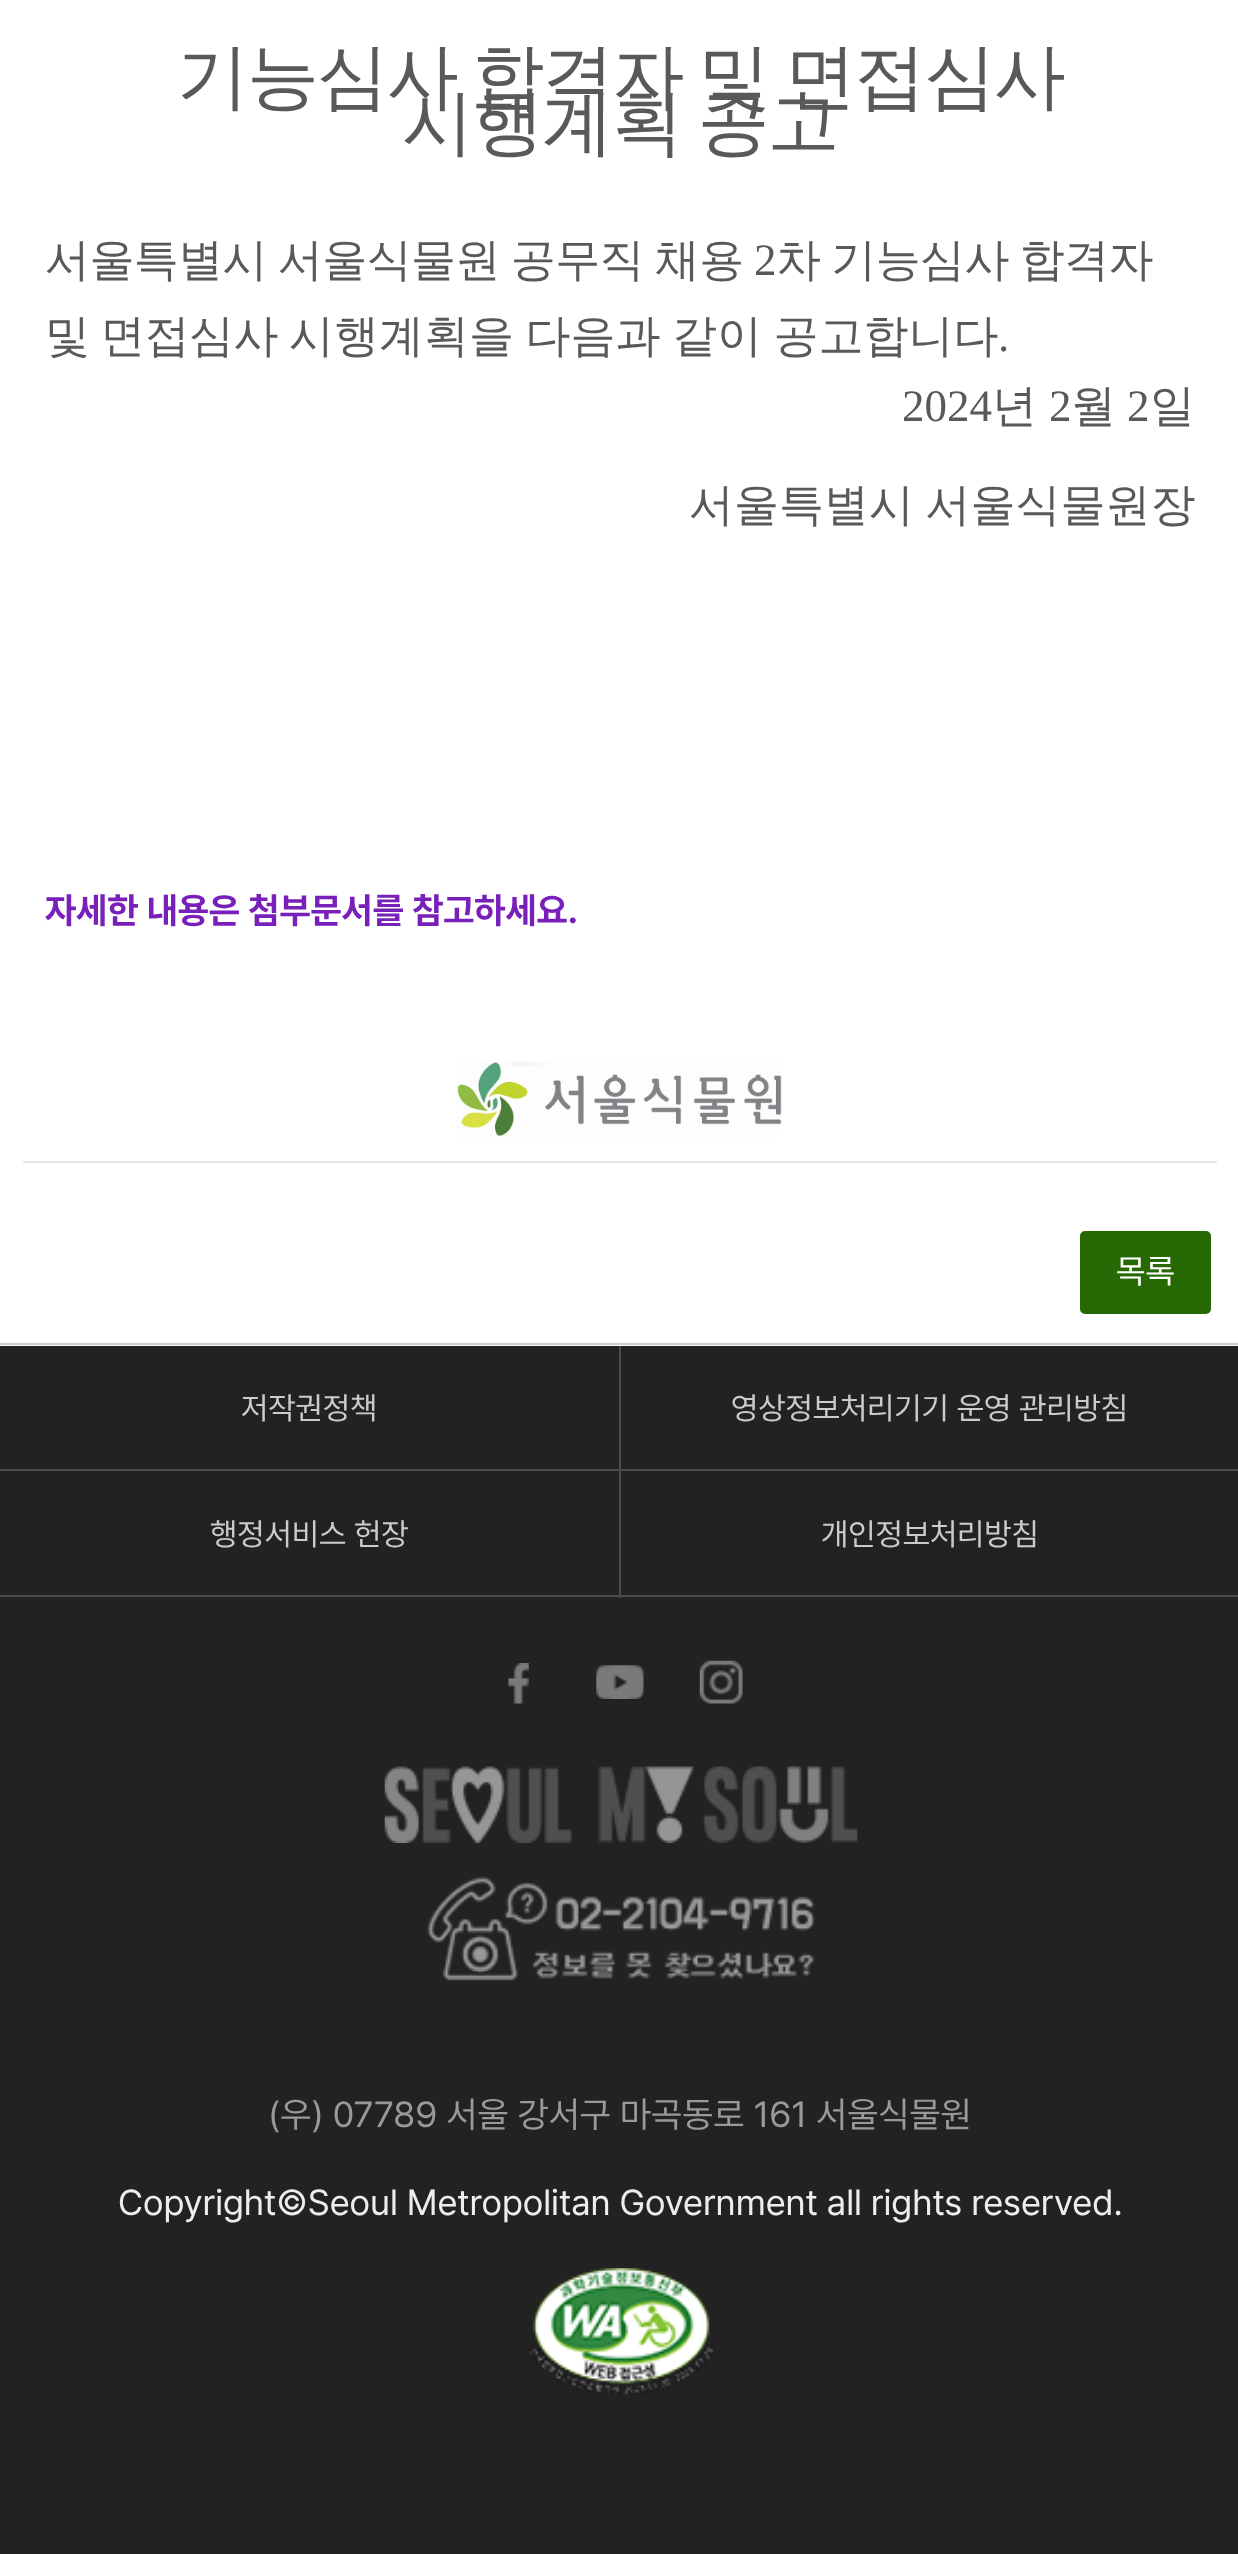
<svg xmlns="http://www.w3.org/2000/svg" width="1238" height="2554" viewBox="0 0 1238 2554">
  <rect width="100%" height="100%" fill="#ffffff"/>
  <rect x="23" y="1161" width="1194" height="2" fill="#e5e5e5"/>
  <text x="177" y="101" word-spacing="-3.5" font-family="WenQuanYi Zen Hei" font-size="72" font-weight="500" letter-spacing="-2.1" fill="#595959">기능심사 합격자 및 면접심사</text>
  <text x="402" y="147" word-spacing="-3.5" font-family="WenQuanYi Zen Hei" font-size="72" font-weight="500" letter-spacing="-2.1" fill="#595959">시행계획 공고</text>
  <text x="45" y="275" word-spacing="-2" font-family="WenQuanYi Zen Hei" font-size="45" font-weight="500" letter-spacing="-0.6" fill="#595959">서울특별시 서울식물원 공무직 채용</text>
  <text x="754" y="275" font-family="Liberation Serif" font-size="45" letter-spacing="-0.6" fill="#595959">2</text>
  <text x="776" y="275" word-spacing="-2" font-family="WenQuanYi Zen Hei" font-size="45" font-weight="500" letter-spacing="-0.6" fill="#595959">차 기능심사 합격자</text>
  <text x="45" y="351" word-spacing="-2" font-family="WenQuanYi Zen Hei" font-size="45" font-weight="500" letter-spacing="-0.6" fill="#595959">및 면접심사</text>
  <text x="289" y="351" word-spacing="-2" font-family="WenQuanYi Zen Hei" font-size="45" font-weight="500" fill="#595959">시행계획을 다음과 같이 공고합니다</text>
  <text x="998" y="351" font-family="Liberation Serif" font-size="45" fill="#595959">.</text>
  <text x="902" y="421" font-family="Liberation Serif" font-size="45" fill="#595959">2024</text>
  <text x="992" y="421" font-family="WenQuanYi Zen Hei" font-size="45" font-weight="500" fill="#595959">년</text>
  <text x="1049" y="421" font-family="Liberation Serif" font-size="45" fill="#595959">2</text>
  <text x="1071" y="421" font-family="WenQuanYi Zen Hei" font-size="45" font-weight="500" fill="#595959">월</text>
  <text x="1127" y="421" font-family="Liberation Serif" font-size="45" fill="#595959">2</text>
  <text x="1150" y="421" font-family="WenQuanYi Zen Hei" font-size="45" font-weight="500" fill="#595959">일</text>
  <text x="689" y="520" word-spacing="-2" font-family="WenQuanYi Zen Hei" font-size="45" font-weight="500" fill="#595959">서울특별시 서울식물원장</text>
  <text x="45" y="923" font-family="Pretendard" font-size="36" font-weight="bold" fill="#7820b9">자세한 내용은 첨부문서를 참고하세요.</text>
  <image x="456" y="1061" width="326" height="76" href="img1.png"/>
  <rect x="1081" y="1232" width="129" height="81" rx="4" fill="#276a05" stroke="#276a05" stroke-width="2"/>
  <text x="1116" y="1283" font-family="Pretendard" font-size="34" fill="#ffffff">목록</text>
  <rect x="0" y="1343" width="1238" height="2" fill="#cccccc"/>
  <rect x="0" y="1346" width="1238" height="1208" fill="#222222"/>
  <rect x="619" y="1346" width="2" height="252" fill="#4a4a4a"/>
  <rect x="0" y="1469" width="1238" height="2" fill="#4a4a4a"/>
  <text x="241" y="1419" font-family="Pretendard" font-size="31.5" fill="#cbcbcb">저작권정책</text>
  <text x="731" y="1419" font-family="Pretendard" font-size="31.5" fill="#cbcbcb">영상정보처리기기 운영 관리방침</text>
  <rect x="0" y="1595" width="1238" height="2" fill="#4a4a4a"/>
  <text x="210" y="1545" font-family="Pretendard" font-size="31.5" fill="#cbcbcb">행정서비스 헌장</text>
  <text x="821" y="1545" font-family="Pretendard" font-size="31.5" fill="#cbcbcb">개인정보처리방침</text>
  <image x="508" y="1663" width="21" height="41" href="img2.png"/>
  <image x="596" y="1665" width="48" height="34" href="img3.png"/>
  <image x="699" y="1660" width="44" height="44" href="img4.png"/>
  <image x="384" y="1766" width="474" height="77" href="img5.png"/>
  <image x="427" y="1876" width="388" height="105" href="img6.png"/>
  <text x="268" y="2127" font-family="Pretendard" font-size="36" fill="#999999">(우) 07789 서울 강서구 마곡동로 161 서울식물원</text>
  <text x="118" y="2215" font-family="Pretendard" font-size="36" fill="#ededed">Copyright©Seoul Metropolitan Government all rights reserved.</text>
  <image x="528" y="2268" width="186" height="127" href="img7.png"/>
</svg>
